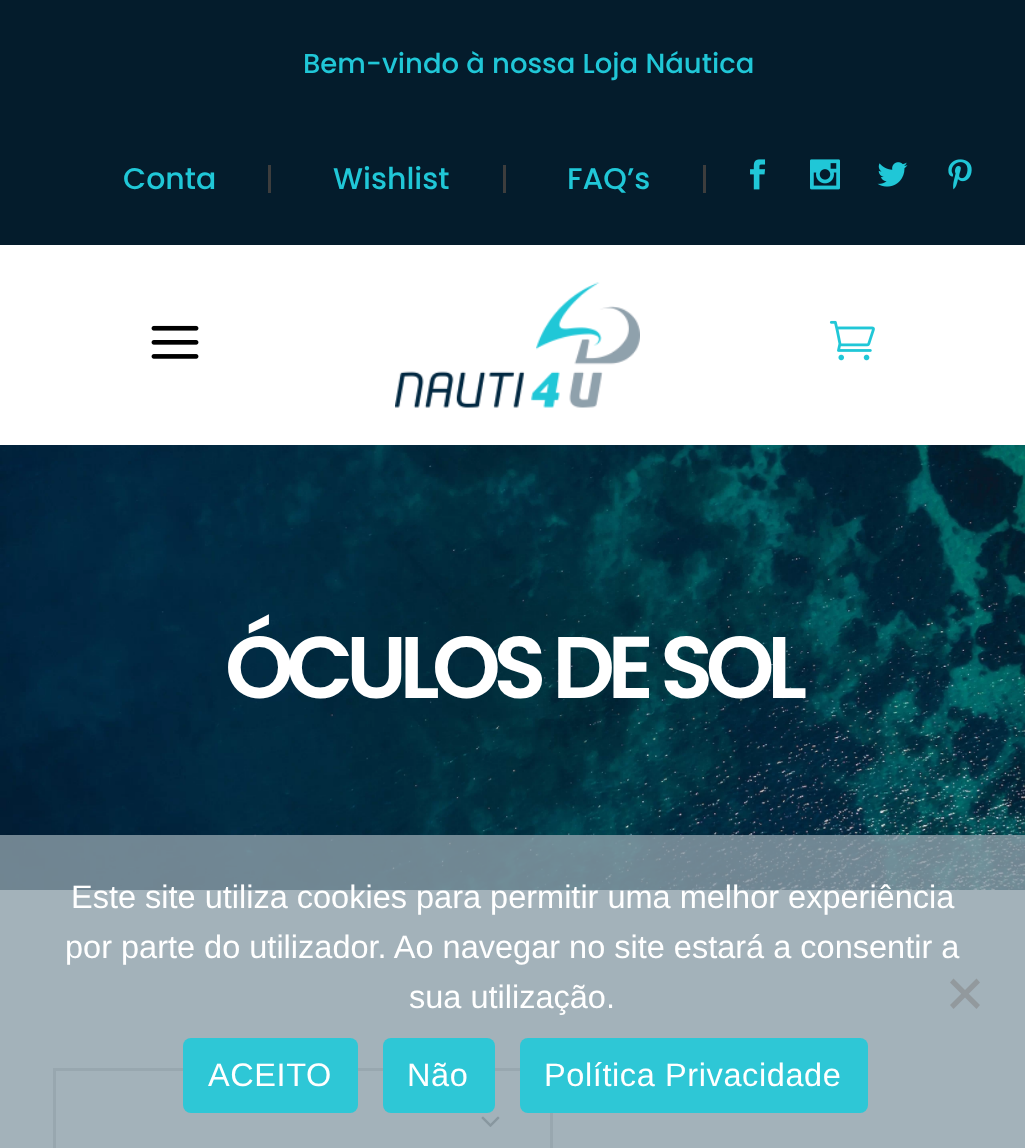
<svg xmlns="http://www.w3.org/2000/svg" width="1025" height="1148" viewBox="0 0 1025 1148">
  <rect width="100%" height="100%" fill="#ffffff"/>
  <rect x="0" y="0" width="1025" height="245" fill="#041c2c"/>
  <text x="303" y="73" font-family="Poppins" font-size="27.5" font-weight="500" fill="#20c7d7">Bem-vindo à nossa Loja Náutica</text>
  <text x="123" y="189" font-family="Poppins" font-size="30" font-weight="500" fill="#20c7d7">Conta</text>
  <rect x="268" y="165" width="3" height="28" fill="#3d3d3d"/>
  <text x="333" y="189" font-family="Poppins" font-size="30" font-weight="500" fill="#20c7d7">Wishlist</text>
  <rect x="503" y="165" width="3" height="28" fill="#3d3d3d"/>
  <text x="567" y="189" font-family="Poppins" font-size="30" font-weight="500" fill="#20c7d7">FAQ’s</text>
  <rect x="703" y="165" width="3" height="28" fill="#3d3d3d"/>
  <image x="750" y="159" width="16" height="31" href="img1.png"/>
  <image x="810" y="159" width="30" height="31" href="img2.png"/>
  <image x="877" y="162" width="31" height="25" href="img3.png"/>
  <image x="948" y="159" width="24" height="31" href="img4.png"/>
  <image x="151" y="325" width="48" height="34" href="img5.png"/>
  <image x="395" y="282" width="245" height="126" href="img6.png"/>
  <image x="829" y="320" width="46" height="41" href="img7.png"/>
  <image x="0" y="445" width="1025" height="445" href="img8.png"/>
  <text x="225" y="698" font-family="Poppins" font-size="87.5" font-weight="600" letter-spacing="-7.5" fill="#ffffff">ÓCULOS DE SOL</text>
  <rect x="54.5" y="1069.5" width="497" height="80" fill="none" stroke="#c6c6c6" stroke-width="3"/>
  <image x="481" y="1116" width="19" height="11" href="img9.png"/>
  <rect x="0" y="835" width="1025" height="313" fill="#8c9fa9" fill-opacity="0.8"/>
  <text x="71" y="908" font-family="Liberation Sans" font-size="32.5" fill="#ffffff">Este site utiliza cookies para permitir uma melhor experiência</text>
  <text x="65" y="958" font-family="Liberation Sans" font-size="32.5" fill="#ffffff">por parte do utilizador. Ao navegar no site estará a consentir a</text>
  <text x="409" y="1008" font-family="Liberation Sans" font-size="32.5" fill="#ffffff">sua utilização.</text>
  <path d="M976.5 978.5L980 982.5L953.5 1009L950 1005Z" fill="#92999d"/>
  <path d="M950 982.5L953.5 978.5L980 1005L976.5 1009Z" fill="#92999d"/>
  <rect x="183" y="1038" width="175" height="75" rx="8" fill="#2ec7d6"/>
  <text x="208" y="1086" font-family="Liberation Sans" font-size="32.5" letter-spacing="0.6" fill="#ffffff">ACEITO</text>
  <rect x="383" y="1038" width="112" height="75" rx="8" fill="#2ec7d6"/>
  <text x="407" y="1086" font-family="Liberation Sans" font-size="32.5" letter-spacing="0.6" fill="#ffffff">Não</text>
  <rect x="520" y="1038" width="348" height="75" rx="8" fill="#2ec7d6"/>
  <text x="544" y="1086" font-family="Liberation Sans" font-size="32.5" letter-spacing="0.6" fill="#ffffff">Política Privacidade</text>
</svg>
